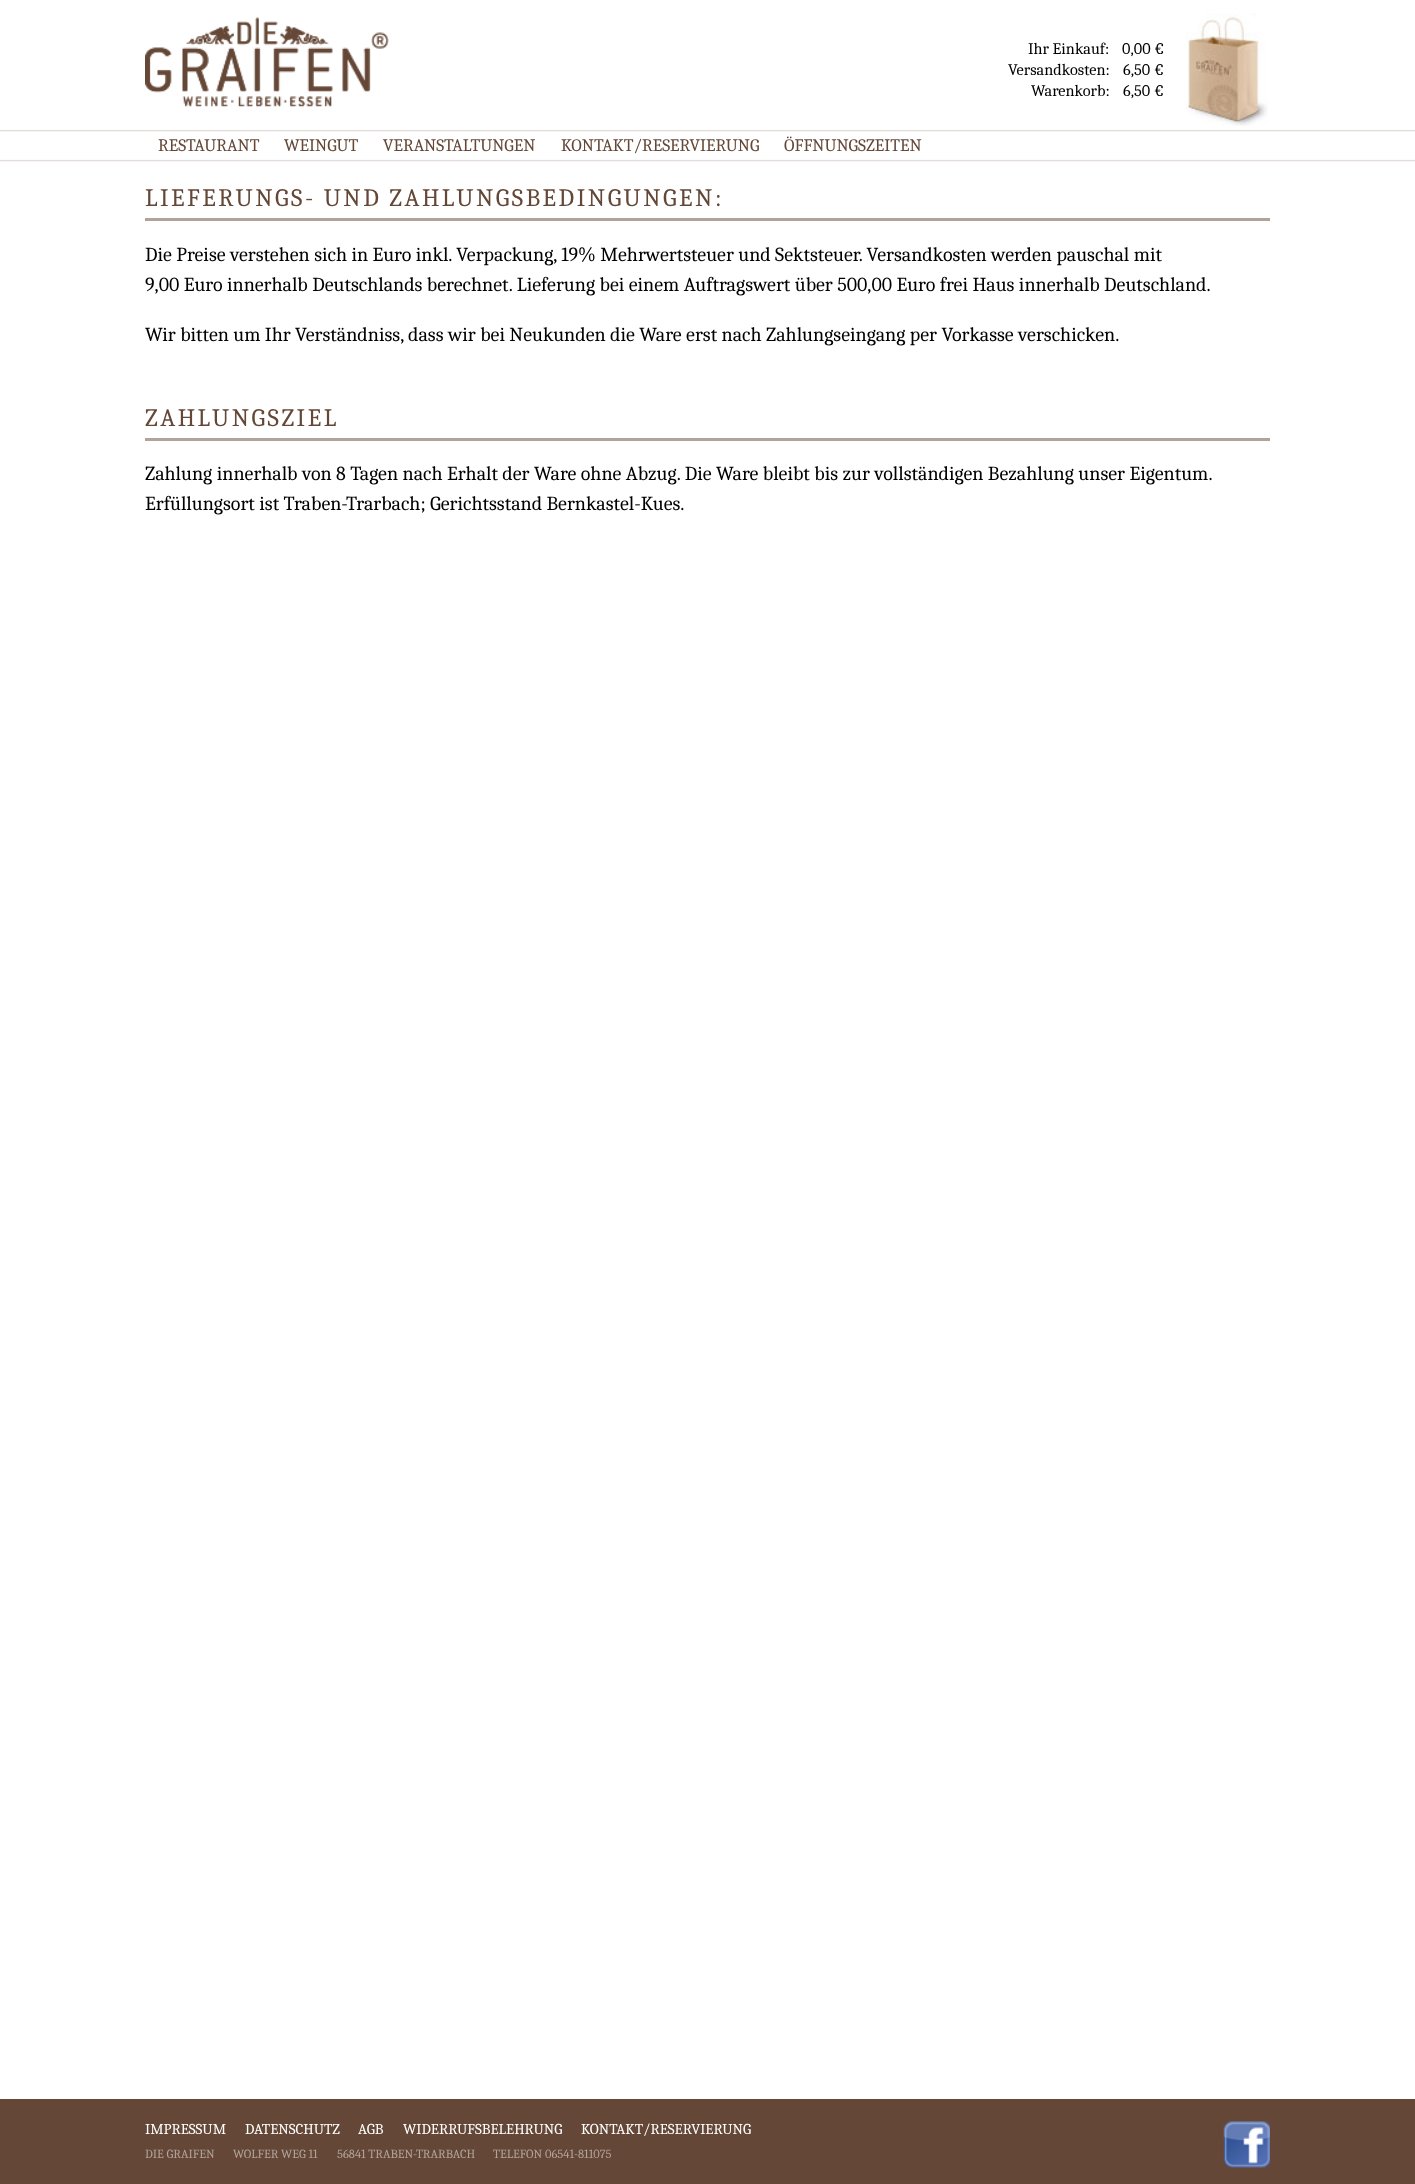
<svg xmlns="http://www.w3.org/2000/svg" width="1415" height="2184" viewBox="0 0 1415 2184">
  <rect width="100%" height="100%" fill="#ffffff"/>
  <image x="0" y="129" width="1415" height="33" href="img1.png"/>
  <image x="145" y="17" width="244" height="90" href="img2.png"/>
  <image x="1186" y="13" width="82" height="113" href="img3.png"/>
  <text x="1028" y="54" font-family="Caladea" font-size="16.25" fill="#000000">Ihr Einkauf:</text>
  <text x="1122" y="54" font-family="Caladea" font-size="16.25" fill="#000000">0,00 €</text>
  <text x="1008" y="75" font-family="Caladea" font-size="16.25" fill="#000000">Versandkosten:</text>
  <text x="1123" y="75" font-family="Caladea" font-size="16.25" fill="#000000">6,50 €</text>
  <text x="1031" y="96" font-family="Caladea" font-size="16.25" fill="#000000">Warenkorb:</text>
  <text x="1123" y="96" font-family="Caladea" font-size="16.25" fill="#000000">6,50 €</text>
  <text x="158" y="151" font-family="Caladea" font-size="17.5" fill="#644736">RESTAURANT</text>
  <text x="284" y="151" font-family="Caladea" font-size="17.5" fill="#644736">WEINGUT</text>
  <text x="383" y="151" font-family="Caladea" font-size="17.5" fill="#644736">VERANSTALTUNGEN</text>
  <text x="561" y="151" font-family="Caladea" font-size="17.5" fill="#644736">KONTAKT/RESERVIERUNG</text>
  <text x="784" y="151" font-family="Caladea" font-size="17.5" fill="#644736">ÖFFNUNGSZEITEN</text>
  <rect x="145" y="218" width="1125" height="3" fill="#b1a39a"/>
  <text x="145" y="206" font-family="Caladea" font-size="25" letter-spacing="2.5" fill="#644736">LIEFERUNGS- UND ZAHLUNGSBEDINGUNGEN:</text>
  <text x="145" y="261" font-family="Caladea" font-size="20" fill="#000000">Die Preise verstehen sich in Euro inkl. Verpackung, 19% Mehrwertsteuer und Sektsteuer. Versandkosten werden pauschal mit</text>
  <text x="145" y="291" font-family="Caladea" font-size="20" fill="#000000">9,00 Euro innerhalb Deutschlands berechnet. Lieferung bei einem Auftragswert über 500,00 Euro frei Haus innerhalb Deutschland.</text>
  <text x="145" y="341" font-family="Caladea" font-size="20" fill="#000000">Wir bitten um Ihr Verständniss, dass wir bei Neukunden die Ware erst nach Zahlungseingang per Vorkasse verschicken.</text>
  <rect x="145" y="438" width="1125" height="3" fill="#b1a39a"/>
  <text x="145" y="426" font-family="Caladea" font-size="25" letter-spacing="2.5" fill="#644736">ZAHLUNGSZIEL</text>
  <text x="145" y="480" font-family="Caladea" font-size="20" fill="#000000">Zahlung innerhalb von 8 Tagen nach Erhalt der Ware ohne Abzug. Die Ware bleibt bis zur vollständigen Bezahlung unser Eigentum.</text>
  <text x="145" y="510" font-family="Caladea" font-size="20" fill="#000000">Erfüllungsort ist Traben-Trarbach; Gerichtsstand Bernkastel-Kues.</text>
  <rect x="0" y="2099" width="1415" height="85" fill="#644736"/>
  <text x="145" y="2134" font-family="Caladea" font-size="15" fill="#ffffff">IMPRESSUM</text>
  <text x="245" y="2134" font-family="Caladea" font-size="15" fill="#ffffff">DATENSCHUTZ</text>
  <text x="358" y="2134" font-family="Caladea" font-size="15" fill="#ffffff">AGB</text>
  <text x="403" y="2134" font-family="Caladea" font-size="15" fill="#ffffff">WIDERRUFSBELEHRUNG</text>
  <text x="581" y="2134" font-family="Caladea" font-size="15" fill="#ffffff">KONTAKT/RESERVIERUNG</text>
  <image x="1223" y="2121" width="47" height="47" href="img4.png"/>
  <text x="145" y="2158" font-family="Caladea" font-size="12.5" fill="#b2a39b">DIE GRAIFEN</text>
  <text x="233" y="2158" font-family="Caladea" font-size="12.5" fill="#b2a39b">WOLFER WEG 11</text>
  <text x="337" y="2158" font-family="Caladea" font-size="12.5" fill="#b2a39b">56841 TRABEN-TRARBACH</text>
  <text x="493" y="2158" font-family="Caladea" font-size="12.5" fill="#b2a39b">TELEFON 06541-811075</text>
</svg>
